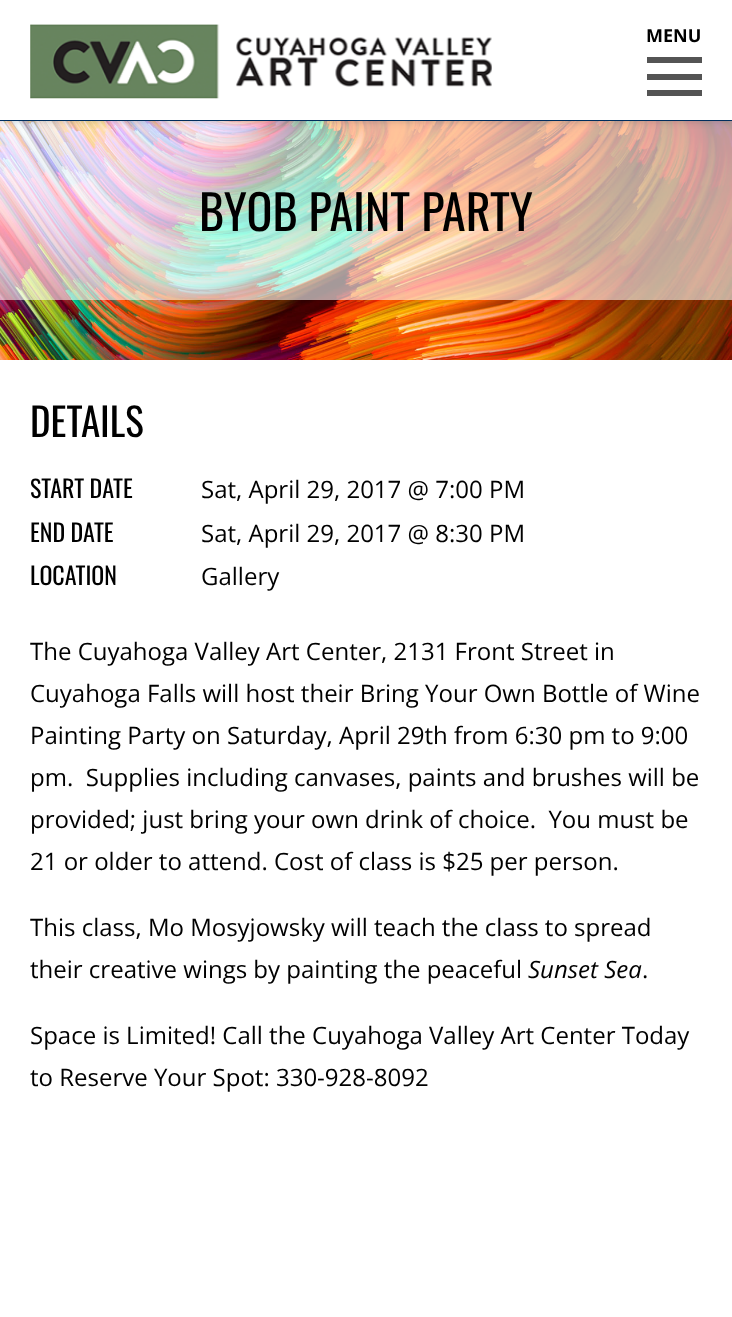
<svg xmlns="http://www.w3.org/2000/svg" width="732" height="1317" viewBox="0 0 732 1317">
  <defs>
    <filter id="blur1" x="-50%" y="-200%" width="200%" height="500%"><feGaussianBlur stdDeviation="4"/></filter>
  </defs>
  <rect width="100%" height="100%" fill="#ffffff"/>
  <rect x="0" y="120" width="732" height="1" fill="#003366"/>
  <image x="0" y="121" width="732" height="239" href="img2.png"/>
  <rect x="0" y="121" width="732" height="179" fill="#ffffff" fill-opacity="0.6"/>
  <rect x="0" y="0" width="732" height="120" fill="#000000" fill-opacity="0.2" filter="url(#blur1)"/>
  <rect x="0" y="0" width="732" height="120" fill="#ffffff"/>
  <text x="646" y="42" font-family="Open Sans" font-size="18" font-weight="bold" fill="#000000">MENU</text>
  <rect x="647" y="57" width="55" height="6" fill="#545454"/>
  <rect x="647" y="74" width="55" height="6" fill="#545454"/>
  <rect x="647" y="90" width="55" height="6" fill="#545454"/>
  <image x="30" y="24" width="462" height="75" href="img1.png"/>
  <text x="199" y="231" font-family="Oswald" font-size="48" fill="#000000">BYOB PAINT PARTY</text>
  <text x="30" y="437" font-family="Oswald" font-size="39" fill="#000000">DETAILS</text>
  <text x="30" y="498" font-family="Oswald" font-size="24" fill="#000000">START DATE</text>
  <text x="201" y="498" font-family="Open Sans" font-size="24" fill="#000000">Sat, April 29, 2017 @ 7:00 PM</text>
  <text x="30" y="542" font-family="Oswald" font-size="24" fill="#000000">END DATE</text>
  <text x="201" y="542" font-family="Open Sans" font-size="24" fill="#000000">Sat, April 29, 2017 @ 8:30 PM</text>
  <text x="30" y="585" font-family="Oswald" font-size="24" fill="#000000">LOCATION</text>
  <text x="201" y="585" font-family="Open Sans" font-size="24" fill="#000000">Gallery</text>
  <text x="30" y="660" font-family="Open Sans" font-size="24" fill="#000000">The Cuyahoga Valley Art Center, 2131 Front Street in</text>
  <text x="30" y="702" font-family="Open Sans" font-size="24" fill="#000000">Cuyahoga Falls will host their Bring Your Own Bottle of Wine</text>
  <text x="30" y="744" font-family="Open Sans" font-size="24" fill="#000000">Painting Party on Saturday, April 29th from 6:30 pm to 9:00</text>
  <text x="30" y="786" font-family="Open Sans" font-size="24" fill="#000000" xml:space="preserve">pm.  Supplies including canvases, paints and brushes will be</text>
  <text x="30" y="828" font-family="Open Sans" font-size="24" fill="#000000" xml:space="preserve">provided; just bring your own drink of choice.  You must be</text>
  <text x="30" y="870" font-family="Open Sans" font-size="24" fill="#000000">21 or older to attend. Cost of class is $25 per person.</text>
  <text x="30" y="936" font-family="Open Sans" font-size="24" fill="#000000">This class, Mo Mosyjowsky will teach the class to spread</text>
  <text x="30" y="978" font-family="Open Sans" font-size="24" fill="#000000">their creative wings by painting the peaceful</text>
  <text x="528" y="978" font-family="Open Sans" font-size="24" font-style="italic" fill="#000000">Sunset Sea</text>
  <text x="642" y="978" font-family="Open Sans" font-size="24" fill="#000000">.</text>
  <text x="30" y="1044" font-family="Open Sans" font-size="24" fill="#000000">Space is Limited! Call the Cuyahoga Valley Art Center Today</text>
  <text x="30" y="1086" font-family="Open Sans" font-size="24" fill="#000000">to Reserve Your Spot: 330-928-8092</text>
</svg>
